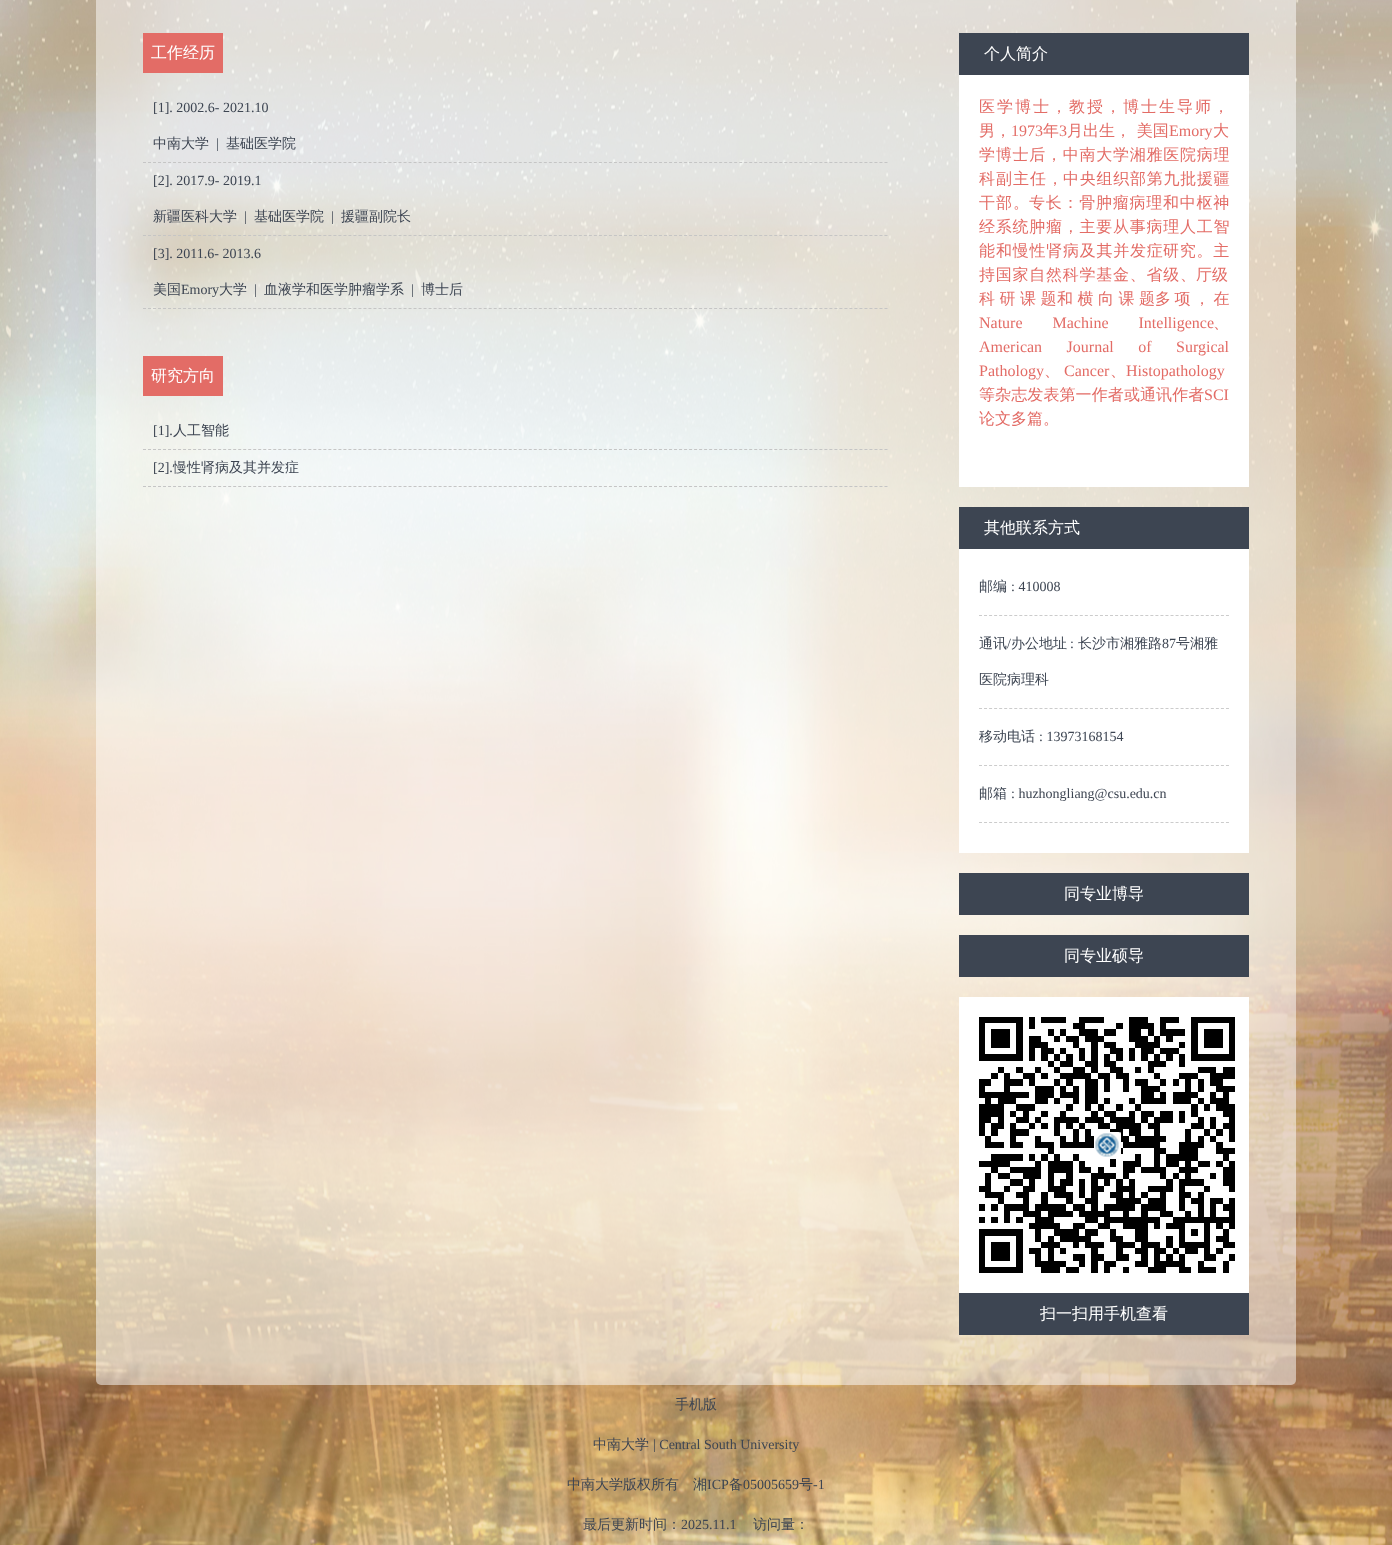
<svg xmlns="http://www.w3.org/2000/svg" width="1392" height="1545" viewBox="0 0 1392 1545">
  <rect width="100%" height="100%" fill="#ffffff"/>
  <image x="0" y="0" width="1392" height="1545" href="img1.png"/>
  <image x="96" y="0" width="1200" height="1385" href="img2.png"/>
  <rect x="143" y="33" width="80" height="40" fill="#e36c66"/>
  <text x="151" y="58" font-family="WenQuanYi Zen Hei" font-size="16" font-weight="500" fill="#ffffff">工作经历</text>
  <path d="M143 162.5H888" fill="none" stroke="#c5c5c5" stroke-dasharray="3 2.01"/>
  <text x="153" y="112" font-family="Liberation Serif" font-size="14" fill="#3d4552">[1]. 2002.6- 2021.10</text>
  <text x="153" y="148" font-family="WenQuanYi Zen Hei" font-size="14" font-weight="500" fill="#3d4552">中南大学</text>
  <text x="216" y="148" font-family="Liberation Serif" font-size="14" fill="#3d4552">|</text>
  <text x="226" y="148" font-family="WenQuanYi Zen Hei" font-size="14" font-weight="500" fill="#3d4552">基础医学院</text>
  <path d="M143 235.5H888" fill="none" stroke="#c5c5c5" stroke-dasharray="3 2.01"/>
  <text x="153" y="185" font-family="Liberation Serif" font-size="14" fill="#3d4552">[2]. 2017.9- 2019.1</text>
  <text x="153" y="221" font-family="WenQuanYi Zen Hei" font-size="14" font-weight="500" fill="#3d4552">新疆医科大学</text>
  <text x="244" y="221" font-family="Liberation Serif" font-size="14" fill="#3d4552">|</text>
  <text x="254" y="221" font-family="WenQuanYi Zen Hei" font-size="14" font-weight="500" fill="#3d4552">基础医学院</text>
  <text x="331" y="221" font-family="Liberation Serif" font-size="14" fill="#3d4552">|</text>
  <text x="341" y="221" font-family="WenQuanYi Zen Hei" font-size="14" font-weight="500" fill="#3d4552">援疆副院长</text>
  <path d="M143 308.5H888" fill="none" stroke="#c5c5c5" stroke-dasharray="3 2.01"/>
  <text x="153" y="258" font-family="Liberation Serif" font-size="14" fill="#3d4552">[3]. 2011.6- 2013.6</text>
  <text x="153" y="294" font-family="WenQuanYi Zen Hei" font-size="14" font-weight="500" fill="#3d4552">美国</text>
  <text x="181" y="294" font-family="Liberation Serif" font-size="14" fill="#3d4552">Emory</text>
  <text x="219" y="294" font-family="WenQuanYi Zen Hei" font-size="14" font-weight="500" fill="#3d4552">大学</text>
  <text x="254" y="294" font-family="Liberation Serif" font-size="14" fill="#3d4552">|</text>
  <text x="264" y="294" font-family="WenQuanYi Zen Hei" font-size="14" font-weight="500" fill="#3d4552">血液学和医学肿瘤学系</text>
  <text x="411" y="294" font-family="Liberation Serif" font-size="14" fill="#3d4552">|</text>
  <text x="421" y="294" font-family="WenQuanYi Zen Hei" font-size="14" font-weight="500" fill="#3d4552">博士后</text>
  <rect x="143" y="356" width="80" height="40" fill="#e36c66"/>
  <text x="151" y="381" font-family="WenQuanYi Zen Hei" font-size="16" font-weight="500" fill="#ffffff">研究方向</text>
  <path d="M143 449.5H888" fill="none" stroke="#c5c5c5" stroke-dasharray="3 2.01"/>
  <text x="153" y="435" font-family="Liberation Serif" font-size="14" fill="#3d4552">[1].</text>
  <text x="173" y="435" font-family="WenQuanYi Zen Hei" font-size="14" font-weight="500" fill="#3d4552">人工智能</text>
  <path d="M143 486.5H888" fill="none" stroke="#c5c5c5" stroke-dasharray="3 2.01"/>
  <text x="153" y="472" font-family="Liberation Serif" font-size="14" fill="#3d4552">[2].</text>
  <text x="173" y="472" font-family="WenQuanYi Zen Hei" font-size="14" font-weight="500" fill="#3d4552">慢性肾病及其并发症</text>
  <rect x="959" y="33" width="290" height="42" fill="#3d4552"/>
  <text x="984" y="59" font-family="WenQuanYi Zen Hei" font-size="16" font-weight="500" fill="#ffffff">个人简介</text>
  <rect x="959" y="75" width="290" height="412" fill="#ffffff"/>
  <text x="979" y="112" font-family="WenQuanYi Zen Hei" font-size="16" font-weight="500" letter-spacing="2" fill="#e36c66">医学博士，教授，博士生导师，</text>
  <text x="979" y="136" font-family="WenQuanYi Zen Hei" font-size="16" font-weight="500" fill="#e36c66">男，</text>
  <text x="1011" y="136" font-family="Liberation Serif" font-size="16" fill="#e36c66">1973</text>
  <text x="1043" y="136" font-family="WenQuanYi Zen Hei" font-size="16" font-weight="500" fill="#e36c66">年</text>
  <text x="1059" y="136" font-family="Liberation Serif" font-size="16" fill="#e36c66">3</text>
  <text x="1067" y="136" word-spacing="1" font-family="WenQuanYi Zen Hei" font-size="16" font-weight="500" fill="#e36c66">月出生， 美国</text>
  <text x="1169" y="136" font-family="Liberation Serif" font-size="16" fill="#e36c66">Emory</text>
  <text x="1213" y="136" font-family="WenQuanYi Zen Hei" font-size="16" font-weight="500" fill="#e36c66">大</text>
  <text x="979" y="160" font-family="WenQuanYi Zen Hei" font-size="16" font-weight="500" letter-spacing="0.75" fill="#e36c66">学博士后，中南大学湘雅医院病理</text>
  <text x="979" y="184" font-family="WenQuanYi Zen Hei" font-size="16" font-weight="500" letter-spacing="1" fill="#e36c66">科副主任，</text>
  <text x="1063" y="184" font-family="WenQuanYi Zen Hei" font-size="16" font-weight="500" letter-spacing="0.75" fill="#e36c66">中央组织部第九批援疆</text>
  <text x="979" y="208" font-family="WenQuanYi Zen Hei" font-size="16" font-weight="500" letter-spacing="1" fill="#e36c66">干部。</text>
  <text x="1029" y="208" font-family="WenQuanYi Zen Hei" font-size="16" font-weight="500" letter-spacing="0.75" fill="#e36c66">专长：骨肿瘤病理和中枢神</text>
  <text x="979" y="232" font-family="WenQuanYi Zen Hei" font-size="16" font-weight="500" letter-spacing="0.75" fill="#e36c66">经系统肿瘤，主要从事病理人工智</text>
  <text x="979" y="256" font-family="WenQuanYi Zen Hei" font-size="16" font-weight="500" fill="#e36c66">能</text>
  <text x="996" y="256" font-family="WenQuanYi Zen Hei" font-size="16" font-weight="500" letter-spacing="0.75" fill="#e36c66">和慢性肾病及其并发症</text>
  <text x="1163" y="256" font-family="WenQuanYi Zen Hei" font-size="16" font-weight="500" letter-spacing="0.75" fill="#e36c66">研究。主</text>
  <text x="979" y="280" font-family="WenQuanYi Zen Hei" font-size="16" font-weight="500" letter-spacing="0.75" fill="#e36c66">持国家自然科学基金、省级</text>
  <text x="1180" y="280" font-family="WenQuanYi Zen Hei" font-size="16" font-weight="500" fill="#e36c66">、</text>
  <text x="1196" y="280" font-family="WenQuanYi Zen Hei" font-size="16" font-weight="500" fill="#e36c66">厅级</text>
  <text x="979" y="304" font-family="WenQuanYi Zen Hei" font-size="16" font-weight="500" letter-spacing="4.5" fill="#e36c66">科研课题</text>
  <text x="1057" y="304" font-family="WenQuanYi Zen Hei" font-size="16" font-weight="500" letter-spacing="4.5" fill="#e36c66">和横向课题</text>
  <text x="1155" y="304" font-family="WenQuanYi Zen Hei" font-size="16" font-weight="500" letter-spacing="3.5" fill="#e36c66">多项，在</text>
  <text x="979" y="328" word-spacing="26" font-family="Liberation Serif" font-size="16" fill="#e36c66">Nature Machine Intelligence</text>
  <text x="1213" y="328" font-family="WenQuanYi Zen Hei" font-size="16" font-weight="500" fill="#e36c66">、</text>
  <text x="979" y="352" word-spacing="20.5" font-family="Liberation Serif" font-size="16" fill="#e36c66">American Journal of Surgical</text>
  <text x="979" y="376" font-family="Liberation Serif" font-size="16" fill="#e36c66">Pathology</text>
  <text x="1044" y="376" font-family="WenQuanYi Zen Hei" font-size="16" font-weight="500" fill="#e36c66">、</text>
  <text x="1064" y="376" font-family="Liberation Serif" font-size="16" fill="#e36c66">Cancer</text>
  <text x="1110" y="376" font-family="WenQuanYi Zen Hei" font-size="16" font-weight="500" fill="#e36c66">、</text>
  <text x="1126" y="376" font-family="Liberation Serif" font-size="16" fill="#e36c66">Histopathology</text>
  <text x="979" y="400" font-family="WenQuanYi Zen Hei" font-size="16" font-weight="500" letter-spacing="0.1" fill="#e36c66">等杂志发表第一作者或通讯作者</text>
  <text x="1204" y="400" font-family="Liberation Serif" font-size="16" fill="#e36c66">SCI</text>
  <text x="979" y="424" font-family="WenQuanYi Zen Hei" font-size="16" font-weight="500" fill="#e36c66">论文多篇。</text>
  <rect x="959" y="507" width="290" height="42" fill="#3d4552"/>
  <text x="984" y="533" font-family="WenQuanYi Zen Hei" font-size="16" font-weight="500" fill="#ffffff">其他联系方式</text>
  <rect x="959" y="549" width="290" height="304" fill="#ffffff"/>
  <text x="979" y="591" font-family="WenQuanYi Zen Hei" font-size="14" font-weight="500" fill="#3d4552">邮编</text>
  <text x="1011" y="591" font-family="Liberation Serif" font-size="14" fill="#3d4552">: 410008</text>
  <path d="M979 615.5H1229" fill="none" stroke="#cccccc" stroke-dasharray="3 2.04"/>
  <text x="979" y="648" font-family="WenQuanYi Zen Hei" font-size="14" font-weight="500" fill="#3d4552">通讯</text>
  <text x="1007" y="648" font-family="Liberation Serif" font-size="14" fill="#3d4552">/</text>
  <text x="1011" y="648" font-family="WenQuanYi Zen Hei" font-size="14" font-weight="500" fill="#3d4552">办公地址</text>
  <text x="1070" y="648" font-family="Liberation Serif" font-size="14" fill="#3d4552">:</text>
  <text x="1078" y="648" font-family="WenQuanYi Zen Hei" font-size="14" font-weight="500" fill="#3d4552">长沙市湘雅路</text>
  <text x="1162" y="648" font-family="Liberation Serif" font-size="14" fill="#3d4552">87</text>
  <text x="1176" y="648" font-family="WenQuanYi Zen Hei" font-size="14" font-weight="500" fill="#3d4552">号湘雅</text>
  <text x="979" y="684" font-family="WenQuanYi Zen Hei" font-size="14" font-weight="500" fill="#3d4552">医院病理科</text>
  <path d="M979 708.5H1229" fill="none" stroke="#cccccc" stroke-dasharray="3 2.04"/>
  <text x="979" y="741" font-family="WenQuanYi Zen Hei" font-size="14" font-weight="500" fill="#3d4552">移动电话</text>
  <text x="1039" y="741" font-family="Liberation Serif" font-size="14" fill="#3d4552">: 13973168154</text>
  <path d="M979 765.5H1229" fill="none" stroke="#cccccc" stroke-dasharray="3 2.04"/>
  <text x="979" y="798" font-family="WenQuanYi Zen Hei" font-size="14" font-weight="500" fill="#3d4552">邮箱</text>
  <text x="1011" y="798" font-family="Liberation Serif" font-size="14" fill="#3d4552">: huzhongliang@csu.edu.cn</text>
  <path d="M979 822.5H1229" fill="none" stroke="#cccccc" stroke-dasharray="3 2.04"/>
  <rect x="959" y="873" width="290" height="42" fill="#3d4552"/>
  <text x="1064" y="899" font-family="WenQuanYi Zen Hei" font-size="16" font-weight="500" fill="#ffffff">同专业博导</text>
  <rect x="959" y="935" width="290" height="42" fill="#3d4552"/>
  <text x="1064" y="961" font-family="WenQuanYi Zen Hei" font-size="16" font-weight="500" fill="#ffffff">同专业硕导</text>
  <rect x="959" y="997" width="290" height="296" fill="#ffffff"/>
  <image x="979" y="1017" width="256" height="256" href="img3.png"/>
  <rect x="959" y="1293" width="290" height="42" fill="#3d4552"/>
  <text x="1040" y="1319" font-family="WenQuanYi Zen Hei" font-size="16" font-weight="500" fill="#ffffff">扫一扫用手机查看</text>
  <text x="675" y="1409" font-family="WenQuanYi Zen Hei" font-size="14" font-weight="500" fill="#3d4552">手机版</text>
  <text x="593" y="1449" font-family="WenQuanYi Zen Hei" font-size="14" font-weight="500" fill="#3d4552">中南大学</text>
  <text x="653" y="1449" font-family="Liberation Serif" font-size="14" fill="#3d4552">| Central South University</text>
  <text x="567" y="1489" font-family="WenQuanYi Zen Hei" font-size="14" font-weight="500" fill="#3d4552">中南大学版权所有　湘</text>
  <text x="707" y="1489" font-family="Liberation Serif" font-size="14" fill="#3d4552">ICP</text>
  <text x="729" y="1489" font-family="WenQuanYi Zen Hei" font-size="14" font-weight="500" fill="#3d4552">备</text>
  <text x="743" y="1489" font-family="Liberation Serif" font-size="14" fill="#3d4552">05005659</text>
  <text x="799" y="1489" font-family="WenQuanYi Zen Hei" font-size="14" font-weight="500" fill="#3d4552">号</text>
  <text x="813" y="1489" font-family="Liberation Serif" font-size="14" fill="#3d4552">-1</text>
  <text x="583" y="1529" font-family="WenQuanYi Zen Hei" font-size="14" font-weight="500" fill="#3d4552">最后更新时间：</text>
  <text x="681" y="1529" font-family="Liberation Serif" font-size="14" fill="#3d4552">2025.11.1</text>
  <text x="753" y="1529" font-family="WenQuanYi Zen Hei" font-size="14" font-weight="500" fill="#3d4552">访问量：</text>
</svg>
